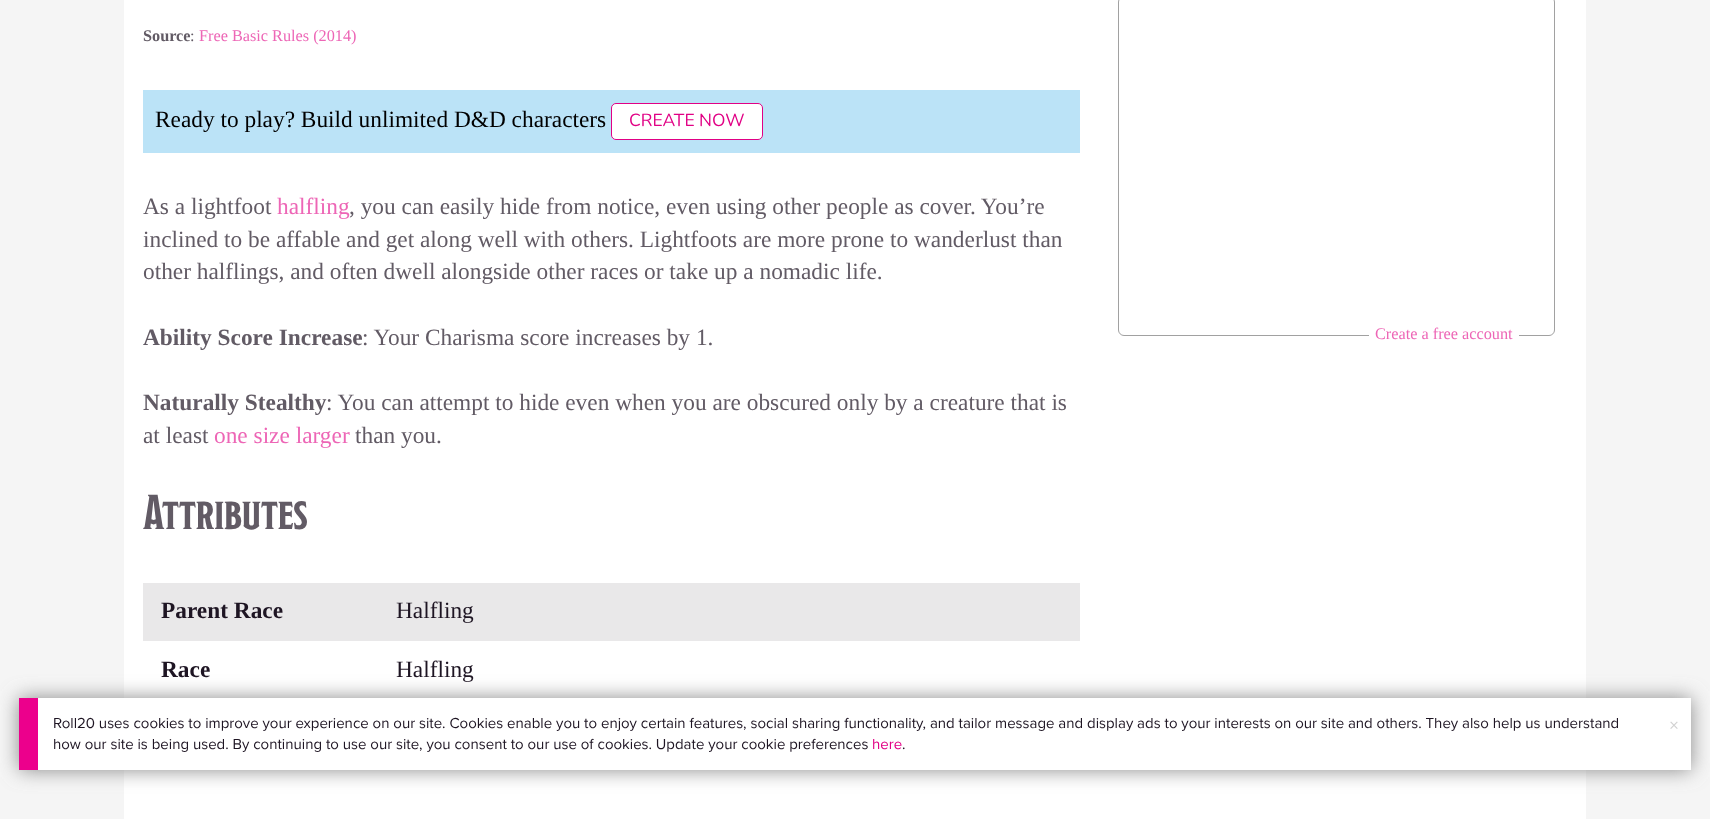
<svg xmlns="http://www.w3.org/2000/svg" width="1710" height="819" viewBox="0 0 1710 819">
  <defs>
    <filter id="blur1" x="-50%" y="-200%" width="200%" height="500%"><feGaussianBlur stdDeviation="10"/></filter>
  </defs>
  <rect width="100%" height="100%" fill="#f5f5f5"/>
  <rect x="124" y="0" width="1462" height="819" fill="#ffffff"/>
  <text x="143" y="41" font-family="Liberation Serif" font-size="16.25" font-weight="bold" fill="#625b65">Source</text>
  <text x="190" y="41" font-family="Liberation Serif" font-size="16.25" fill="#625b65">:</text>
  <text x="199" y="41" font-family="Liberation Serif" font-size="16.25" fill="#ed66b6">Free Basic Rules (2014)</text>
  <rect x="143" y="90" width="937" height="63" fill="#bbe3f7"/>
  <text x="155" y="127" font-family="Liberation Serif" font-size="23.35" fill="#000000">Ready to play? Build unlimited D&amp;D characters</text>
  <rect x="611.5" y="103.5" width="151" height="36" rx="4.5" fill="#ffffff" stroke="#e10085"/>
  <text x="629" y="126" font-family="Nunito" font-size="17.5" fill="#e10085">CREATE NOW</text>
  <text x="143" y="214" font-family="Liberation Serif" font-size="23.35" fill="#625b65">As a lightfoot</text>
  <text x="277" y="214" font-family="Liberation Serif" font-size="23.35" fill="#ed66b6">halfling</text>
  <text x="349" y="214" font-family="Liberation Serif" font-size="23.35" fill="#625b65">, you can easily hide from notice, even using other people as cover. You’re</text>
  <text x="143" y="247" font-family="Liberation Serif" font-size="23.35" fill="#625b65">inclined to be affable and get along well with others. Lightfoots are more prone to wanderlust than</text>
  <text x="143" y="279" font-family="Liberation Serif" font-size="23.35" fill="#625b65">other halflings, and often dwell alongside other races or take up a nomadic life.</text>
  <text x="143" y="345" font-family="Liberation Serif" font-size="23.35" font-weight="bold" fill="#625b65">Ability Score Increase</text>
  <text x="362" y="345" font-family="Liberation Serif" font-size="23.35" fill="#625b65">: Your Charisma score increases by 1.</text>
  <text x="143" y="410" font-family="Liberation Serif" font-size="23.35" font-weight="bold" fill="#625b65">Naturally Stealthy</text>
  <text x="326" y="410" font-family="Liberation Serif" font-size="23.35" fill="#625b65">: You can attempt to hide even when you are obscured only by a creature that is</text>
  <text x="143" y="443" font-family="Liberation Serif" font-size="23.35" fill="#625b65">at least</text>
  <text x="214" y="443" font-family="Liberation Serif" font-size="23.35" fill="#ed66b6">one size larger</text>
  <text x="355" y="443" font-family="Liberation Serif" font-size="23.35" fill="#625b65">than you.</text>
  <text x="143" y="529" font-family="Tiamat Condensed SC" font-size="45" fill="#625b65">Attributes</text>
  <rect x="143" y="583" width="937" height="58" fill="#e9e8e9"/>
  <text x="161" y="618" font-family="Liberation Serif" font-size="23.35" font-weight="bold" fill="#1e1523">Parent Race</text>
  <text x="396" y="618" font-family="Liberation Serif" font-size="23.35" fill="#1e1523">Halfling</text>
  <text x="161" y="677" font-family="Liberation Serif" font-size="23.35" font-weight="bold" fill="#1e1523">Race</text>
  <text x="396" y="677" font-family="Liberation Serif" font-size="23.35" fill="#1e1523">Halfling</text>
  <rect x="1118.5" y="-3.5" width="436" height="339" rx="5.5" fill="none" stroke="#a1a1a1"/>
  <rect x="1369" y="335" width="150" height="1" fill="#ffffff"/>
  <text x="1375" y="339" font-family="Liberation Serif" font-size="16.25" fill="#ed66b6">Create a free account</text>
  <rect x="19" y="698" width="1672" height="72" fill="#888888" filter="url(#blur1)"/>
  <rect x="38" y="698" width="1653" height="72" fill="#ffffff"/>
  <rect x="19" y="698" width="19" height="72" fill="#ec008c"/>
  <text x="53" y="728" font-family="Proxima Nova" font-size="15" fill="#1e1523">Roll20 uses cookies to improve your experience on our site. Cookies enable you to enjoy certain features, social sharing functionality, and tailor message and display ads to your interests on our site and others. They also help us understand</text>
  <text x="53" y="749" font-family="Proxima Nova" font-size="15" fill="#1e1523">how our site is being used. By continuing to use our site, you consent to our use of cookies. Update your cookie preferences</text>
  <text x="872" y="749" font-family="Proxima Nova" font-size="15" fill="#e10085">here</text>
  <text x="902" y="749" font-family="Proxima Nova" font-size="15" fill="#1e1523">.</text>
  <text x="1669" y="732" font-family="Proxima Nova" font-size="20" fill="#d1d1d1">×</text>
</svg>
